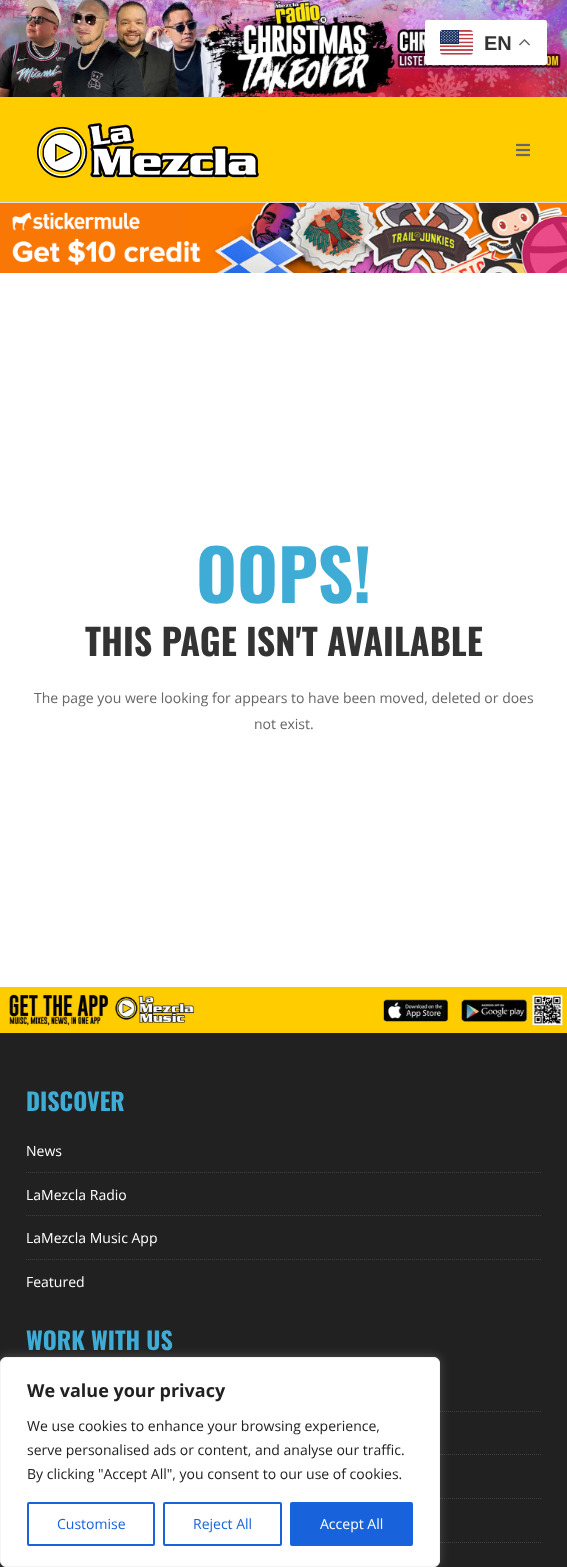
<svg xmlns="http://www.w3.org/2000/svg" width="567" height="1567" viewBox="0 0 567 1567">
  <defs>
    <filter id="blur1" x="-50%" y="-200%" width="200%" height="500%"><feGaussianBlur stdDeviation="7.5"/></filter>
    <filter id="blur2" x="-50%" y="-200%" width="200%" height="500%"><feGaussianBlur stdDeviation="5"/></filter>
  </defs>
  <rect width="100%" height="100%" fill="#ffffff"/>
  <image x="0" y="0" width="567" height="97" href="img3.png"/>
  <rect x="425" y="25" width="122" height="45" rx="2" fill="#000000" fill-opacity="0.15" filter="url(#blur1)"/>
  <rect x="425" y="20" width="122" height="45" rx="2" fill="#ffffff"/>
  <image x="440" y="30" width="33" height="25" href="img1.png"/>
  <text x="484" y="50" font-family="Liberation Sans" font-size="20" font-weight="bold" fill="#333333">EN</text>
  <image x="519" y="39" width="11" height="7" href="img2.png"/>
  <rect x="0" y="202" width="567" height="1" fill="#e1e1e1"/>
  <rect x="0" y="97" width="567" height="105" fill="#ffcc00"/>
  <image x="37" y="123" width="222" height="55" href="img4.png"/>
  <image x="516" y="143" width="14" height="14" href="img5.png"/>
  <image x="0" y="203" width="567" height="70" href="img6.png"/>
  <text x="196" y="603" font-family="Oswald" font-size="70" font-weight="bold" fill="#3facd6">OOPS!</text>
  <text x="85" y="656" font-family="Oswald" font-size="36" font-weight="bold" fill="#333333">THIS PAGE ISN'T AVAILABLE</text>
  <text x="34" y="703" font-family="Open Sans" font-size="14" fill="#666666">The page you were looking for appears to have been moved, deleted or does</text>
  <text x="254" y="729" font-family="Open Sans" font-size="14" fill="#666666">not exist.</text>
  <image x="0" y="987" width="567" height="46" href="img7.png"/>
  <rect x="0" y="1033" width="567" height="534" fill="#212121"/>
  <text x="26" y="1111" font-family="Oswald" font-size="24" font-weight="bold" fill="#3facd6">DISCOVER</text>
  <path d="M26 1172.5H541" fill="none" stroke="#3e3e3e" stroke-dasharray="1 1"/>
  <text x="26" y="1156" font-family="Open Sans" font-size="14" fill="#ffffff">News</text>
  <path d="M26 1215.5H541" fill="none" stroke="#3e3e3e" stroke-dasharray="1 1"/>
  <text x="26" y="1200" font-family="Open Sans" font-size="14" fill="#ffffff">LaMezcla Radio</text>
  <path d="M26 1259.5H541" fill="none" stroke="#3e3e3e" stroke-dasharray="1 1"/>
  <text x="26" y="1243" font-family="Open Sans" font-size="14" fill="#ffffff">LaMezcla Music App</text>
  <text x="26" y="1287" font-family="Open Sans" font-size="14" fill="#ffffff">Featured</text>
  <text x="26" y="1350" font-family="Oswald" font-size="24" font-weight="bold" fill="#3facd6">WORK WITH US</text>
  <path d="M26 1411.5H541" fill="none" stroke="#3e3e3e" stroke-dasharray="1 1"/>
  <path d="M26 1454.5H541" fill="none" stroke="#3e3e3e" stroke-dasharray="1 1"/>
  <path d="M26 1498.5H541" fill="none" stroke="#3e3e3e" stroke-dasharray="1 1"/>
  <path d="M26 1542.5H541" fill="none" stroke="#3e3e3e" stroke-dasharray="1 1"/>
  <rect x="0" y="1356" width="440" height="210" rx="6" fill="#acabab" fill-opacity="0.3" filter="url(#blur2)"/>
  <rect x="0.5" y="1357.5" width="439" height="209" rx="5.5" fill="#ffffff" stroke="#f4f4f4"/>
  <text x="27" y="1397" font-family="Open Sans" font-size="18" font-weight="bold" fill="#212121">We value your privacy</text>
  <text x="27" y="1431" font-family="Open Sans" font-size="14" fill="#212121">We use cookies to enhance your browsing experience,</text>
  <text x="27" y="1455" font-family="Open Sans" font-size="14" fill="#212121">serve personalised ads or content, and analyse our traffic.</text>
  <text x="27" y="1479" font-family="Open Sans" font-size="14" fill="#212121">By clicking "Accept All", you consent to our use of cookies.</text>
  <rect x="28" y="1503" width="126" height="42" rx="1" fill="none" stroke="#1863dc" stroke-width="2"/>
  <text x="57" y="1529" font-family="Open Sans" font-size="14" fill="#1863dc">Customise</text>
  <rect x="164" y="1503" width="117" height="42" rx="1" fill="none" stroke="#1863dc" stroke-width="2"/>
  <text x="193" y="1529" font-family="Open Sans" font-size="14" fill="#1863dc">Reject All</text>
  <rect x="291" y="1503" width="121" height="42" rx="1" fill="#1863dc" stroke="#1863dc" stroke-width="2"/>
  <text x="320" y="1529" font-family="Open Sans" font-size="14" fill="#ffffff">Accept All</text>
</svg>
